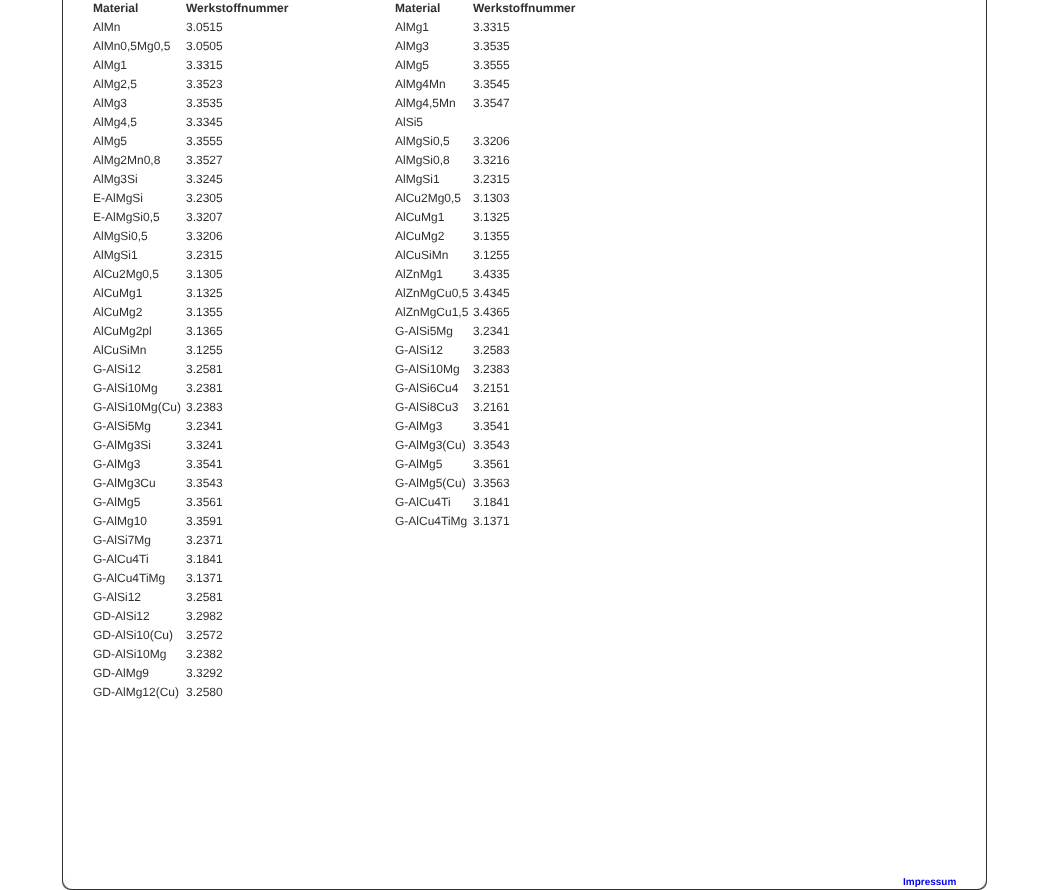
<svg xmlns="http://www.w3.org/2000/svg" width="1048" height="890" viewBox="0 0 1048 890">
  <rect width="100%" height="100%" fill="#ffffff"/>
  <rect x="62" y="0" width="1" height="872" fill="#303030"/>
  <text x="93" y="12" font-family="Liberation Sans" font-size="12" font-weight="bold" fill="#303030">Material</text>
  <text x="186" y="12" font-family="Liberation Sans" font-size="12" font-weight="bold" fill="#303030">Werkstoffnummer</text>
  <text x="93" y="31" font-family="Liberation Sans" font-size="12" fill="#303030">AlMn</text>
  <text x="186" y="31" font-family="Liberation Sans" font-size="12" fill="#303030">3.0515</text>
  <text x="93" y="50" font-family="Liberation Sans" font-size="12" fill="#303030">AlMn0,5Mg0,5</text>
  <text x="186" y="50" font-family="Liberation Sans" font-size="12" fill="#303030">3.0505</text>
  <text x="93" y="69" font-family="Liberation Sans" font-size="12" fill="#303030">AlMg1</text>
  <text x="186" y="69" font-family="Liberation Sans" font-size="12" fill="#303030">3.3315</text>
  <text x="93" y="88" font-family="Liberation Sans" font-size="12" fill="#303030">AlMg2,5</text>
  <text x="186" y="88" font-family="Liberation Sans" font-size="12" fill="#303030">3.3523</text>
  <text x="93" y="107" font-family="Liberation Sans" font-size="12" fill="#303030">AlMg3</text>
  <text x="186" y="107" font-family="Liberation Sans" font-size="12" fill="#303030">3.3535</text>
  <text x="93" y="126" font-family="Liberation Sans" font-size="12" fill="#303030">AlMg4,5</text>
  <text x="186" y="126" font-family="Liberation Sans" font-size="12" fill="#303030">3.3345</text>
  <text x="93" y="145" font-family="Liberation Sans" font-size="12" fill="#303030">AlMg5</text>
  <text x="186" y="145" font-family="Liberation Sans" font-size="12" fill="#303030">3.3555</text>
  <text x="93" y="164" font-family="Liberation Sans" font-size="12" fill="#303030">AlMg2Mn0,8</text>
  <text x="186" y="164" font-family="Liberation Sans" font-size="12" fill="#303030">3.3527</text>
  <text x="93" y="183" font-family="Liberation Sans" font-size="12" fill="#303030">AlMg3Si</text>
  <text x="186" y="183" font-family="Liberation Sans" font-size="12" fill="#303030">3.3245</text>
  <text x="93" y="202" font-family="Liberation Sans" font-size="12" fill="#303030">E-AlMgSi</text>
  <text x="186" y="202" font-family="Liberation Sans" font-size="12" fill="#303030">3.2305</text>
  <text x="93" y="221" font-family="Liberation Sans" font-size="12" fill="#303030">E-AlMgSi0,5</text>
  <text x="186" y="221" font-family="Liberation Sans" font-size="12" fill="#303030">3.3207</text>
  <text x="93" y="240" font-family="Liberation Sans" font-size="12" fill="#303030">AlMgSi0,5</text>
  <text x="186" y="240" font-family="Liberation Sans" font-size="12" fill="#303030">3.3206</text>
  <text x="93" y="259" font-family="Liberation Sans" font-size="12" fill="#303030">AlMgSi1</text>
  <text x="186" y="259" font-family="Liberation Sans" font-size="12" fill="#303030">3.2315</text>
  <text x="93" y="278" font-family="Liberation Sans" font-size="12" fill="#303030">AlCu2Mg0,5</text>
  <text x="186" y="278" font-family="Liberation Sans" font-size="12" fill="#303030">3.1305</text>
  <text x="93" y="297" font-family="Liberation Sans" font-size="12" fill="#303030">AlCuMg1</text>
  <text x="186" y="297" font-family="Liberation Sans" font-size="12" fill="#303030">3.1325</text>
  <text x="93" y="316" font-family="Liberation Sans" font-size="12" fill="#303030">AlCuMg2</text>
  <text x="186" y="316" font-family="Liberation Sans" font-size="12" fill="#303030">3.1355</text>
  <text x="93" y="335" font-family="Liberation Sans" font-size="12" fill="#303030">AlCuMg2pl</text>
  <text x="186" y="335" font-family="Liberation Sans" font-size="12" fill="#303030">3.1365</text>
  <text x="93" y="354" font-family="Liberation Sans" font-size="12" fill="#303030">AlCuSiMn</text>
  <text x="186" y="354" font-family="Liberation Sans" font-size="12" fill="#303030">3.1255</text>
  <text x="93" y="373" font-family="Liberation Sans" font-size="12" fill="#303030">G-AlSi12</text>
  <text x="186" y="373" font-family="Liberation Sans" font-size="12" fill="#303030">3.2581</text>
  <text x="93" y="392" font-family="Liberation Sans" font-size="12" fill="#303030">G-AlSi10Mg</text>
  <text x="186" y="392" font-family="Liberation Sans" font-size="12" fill="#303030">3.2381</text>
  <text x="93" y="411" font-family="Liberation Sans" font-size="12" fill="#303030">G-AlSi10Mg(Cu)</text>
  <text x="186" y="411" font-family="Liberation Sans" font-size="12" fill="#303030">3.2383</text>
  <text x="93" y="430" font-family="Liberation Sans" font-size="12" fill="#303030">G-AlSi5Mg</text>
  <text x="186" y="430" font-family="Liberation Sans" font-size="12" fill="#303030">3.2341</text>
  <text x="93" y="449" font-family="Liberation Sans" font-size="12" fill="#303030">G-AlMg3Si</text>
  <text x="186" y="449" font-family="Liberation Sans" font-size="12" fill="#303030">3.3241</text>
  <text x="93" y="468" font-family="Liberation Sans" font-size="12" fill="#303030">G-AlMg3</text>
  <text x="186" y="468" font-family="Liberation Sans" font-size="12" fill="#303030">3.3541</text>
  <text x="93" y="487" font-family="Liberation Sans" font-size="12" fill="#303030">G-AlMg3Cu</text>
  <text x="186" y="487" font-family="Liberation Sans" font-size="12" fill="#303030">3.3543</text>
  <text x="93" y="506" font-family="Liberation Sans" font-size="12" fill="#303030">G-AlMg5</text>
  <text x="186" y="506" font-family="Liberation Sans" font-size="12" fill="#303030">3.3561</text>
  <text x="93" y="525" font-family="Liberation Sans" font-size="12" fill="#303030">G-AlMg10</text>
  <text x="186" y="525" font-family="Liberation Sans" font-size="12" fill="#303030">3.3591</text>
  <text x="93" y="544" font-family="Liberation Sans" font-size="12" fill="#303030">G-AlSi7Mg</text>
  <text x="186" y="544" font-family="Liberation Sans" font-size="12" fill="#303030">3.2371</text>
  <text x="93" y="563" font-family="Liberation Sans" font-size="12" fill="#303030">G-AlCu4Ti</text>
  <text x="186" y="563" font-family="Liberation Sans" font-size="12" fill="#303030">3.1841</text>
  <text x="93" y="582" font-family="Liberation Sans" font-size="12" fill="#303030">G-AlCu4TiMg</text>
  <text x="186" y="582" font-family="Liberation Sans" font-size="12" fill="#303030">3.1371</text>
  <text x="93" y="601" font-family="Liberation Sans" font-size="12" fill="#303030">G-AlSi12</text>
  <text x="186" y="601" font-family="Liberation Sans" font-size="12" fill="#303030">3.2581</text>
  <text x="93" y="620" font-family="Liberation Sans" font-size="12" fill="#303030">GD-AlSi12</text>
  <text x="186" y="620" font-family="Liberation Sans" font-size="12" fill="#303030">3.2982</text>
  <text x="93" y="639" font-family="Liberation Sans" font-size="12" fill="#303030">GD-AlSi10(Cu)</text>
  <text x="186" y="639" font-family="Liberation Sans" font-size="12" fill="#303030">3.2572</text>
  <text x="93" y="658" font-family="Liberation Sans" font-size="12" fill="#303030">GD-AlSi10Mg</text>
  <text x="186" y="658" font-family="Liberation Sans" font-size="12" fill="#303030">3.2382</text>
  <text x="93" y="677" font-family="Liberation Sans" font-size="12" fill="#303030">GD-AlMg9</text>
  <text x="186" y="677" font-family="Liberation Sans" font-size="12" fill="#303030">3.3292</text>
  <text x="93" y="696" font-family="Liberation Sans" font-size="12" fill="#303030">GD-AlMg12(Cu)</text>
  <text x="186" y="696" font-family="Liberation Sans" font-size="12" fill="#303030">3.2580</text>
  <text x="395" y="12" font-family="Liberation Sans" font-size="12" font-weight="bold" fill="#303030">Material</text>
  <text x="473" y="12" font-family="Liberation Sans" font-size="12" font-weight="bold" fill="#303030">Werkstoffnummer</text>
  <text x="395" y="31" font-family="Liberation Sans" font-size="12" fill="#303030">AlMg1</text>
  <text x="473" y="31" font-family="Liberation Sans" font-size="12" fill="#303030">3.3315</text>
  <text x="395" y="50" font-family="Liberation Sans" font-size="12" fill="#303030">AlMg3</text>
  <text x="473" y="50" font-family="Liberation Sans" font-size="12" fill="#303030">3.3535</text>
  <text x="395" y="69" font-family="Liberation Sans" font-size="12" fill="#303030">AlMg5</text>
  <text x="473" y="69" font-family="Liberation Sans" font-size="12" fill="#303030">3.3555</text>
  <text x="395" y="88" font-family="Liberation Sans" font-size="12" fill="#303030">AlMg4Mn</text>
  <text x="473" y="88" font-family="Liberation Sans" font-size="12" fill="#303030">3.3545</text>
  <text x="395" y="107" font-family="Liberation Sans" font-size="12" fill="#303030">AlMg4,5Mn</text>
  <text x="473" y="107" font-family="Liberation Sans" font-size="12" fill="#303030">3.3547</text>
  <text x="395" y="126" font-family="Liberation Sans" font-size="12" fill="#303030">AlSi5</text>
  <text x="395" y="145" font-family="Liberation Sans" font-size="12" fill="#303030">AlMgSi0,5</text>
  <text x="473" y="145" font-family="Liberation Sans" font-size="12" fill="#303030">3.3206</text>
  <text x="395" y="164" font-family="Liberation Sans" font-size="12" fill="#303030">AlMgSi0,8</text>
  <text x="473" y="164" font-family="Liberation Sans" font-size="12" fill="#303030">3.3216</text>
  <text x="395" y="183" font-family="Liberation Sans" font-size="12" fill="#303030">AlMgSi1</text>
  <text x="473" y="183" font-family="Liberation Sans" font-size="12" fill="#303030">3.2315</text>
  <text x="395" y="202" font-family="Liberation Sans" font-size="12" fill="#303030">AlCu2Mg0,5</text>
  <text x="473" y="202" font-family="Liberation Sans" font-size="12" fill="#303030">3.1303</text>
  <text x="395" y="221" font-family="Liberation Sans" font-size="12" fill="#303030">AlCuMg1</text>
  <text x="473" y="221" font-family="Liberation Sans" font-size="12" fill="#303030">3.1325</text>
  <text x="395" y="240" font-family="Liberation Sans" font-size="12" fill="#303030">AlCuMg2</text>
  <text x="473" y="240" font-family="Liberation Sans" font-size="12" fill="#303030">3.1355</text>
  <text x="395" y="259" font-family="Liberation Sans" font-size="12" fill="#303030">AlCuSiMn</text>
  <text x="473" y="259" font-family="Liberation Sans" font-size="12" fill="#303030">3.1255</text>
  <text x="395" y="278" font-family="Liberation Sans" font-size="12" fill="#303030">AlZnMg1</text>
  <text x="473" y="278" font-family="Liberation Sans" font-size="12" fill="#303030">3.4335</text>
  <text x="395" y="297" font-family="Liberation Sans" font-size="12" fill="#303030">AlZnMgCu0,5</text>
  <text x="473" y="297" font-family="Liberation Sans" font-size="12" fill="#303030">3.4345</text>
  <text x="395" y="316" font-family="Liberation Sans" font-size="12" fill="#303030">AlZnMgCu1,5</text>
  <text x="473" y="316" font-family="Liberation Sans" font-size="12" fill="#303030">3.4365</text>
  <text x="395" y="335" font-family="Liberation Sans" font-size="12" fill="#303030">G-AlSi5Mg</text>
  <text x="473" y="335" font-family="Liberation Sans" font-size="12" fill="#303030">3.2341</text>
  <text x="395" y="354" font-family="Liberation Sans" font-size="12" fill="#303030">G-AlSi12</text>
  <text x="473" y="354" font-family="Liberation Sans" font-size="12" fill="#303030">3.2583</text>
  <text x="395" y="373" font-family="Liberation Sans" font-size="12" fill="#303030">G-AlSi10Mg</text>
  <text x="473" y="373" font-family="Liberation Sans" font-size="12" fill="#303030">3.2383</text>
  <text x="395" y="392" font-family="Liberation Sans" font-size="12" fill="#303030">G-AlSi6Cu4</text>
  <text x="473" y="392" font-family="Liberation Sans" font-size="12" fill="#303030">3.2151</text>
  <text x="395" y="411" font-family="Liberation Sans" font-size="12" fill="#303030">G-AlSi8Cu3</text>
  <text x="473" y="411" font-family="Liberation Sans" font-size="12" fill="#303030">3.2161</text>
  <text x="395" y="430" font-family="Liberation Sans" font-size="12" fill="#303030">G-AlMg3</text>
  <text x="473" y="430" font-family="Liberation Sans" font-size="12" fill="#303030">3.3541</text>
  <text x="395" y="449" font-family="Liberation Sans" font-size="12" fill="#303030">G-AlMg3(Cu)</text>
  <text x="473" y="449" font-family="Liberation Sans" font-size="12" fill="#303030">3.3543</text>
  <text x="395" y="468" font-family="Liberation Sans" font-size="12" fill="#303030">G-AlMg5</text>
  <text x="473" y="468" font-family="Liberation Sans" font-size="12" fill="#303030">3.3561</text>
  <text x="395" y="487" font-family="Liberation Sans" font-size="12" fill="#303030">G-AlMg5(Cu)</text>
  <text x="473" y="487" font-family="Liberation Sans" font-size="12" fill="#303030">3.3563</text>
  <text x="395" y="506" font-family="Liberation Sans" font-size="12" fill="#303030">G-AlCu4Ti</text>
  <text x="473" y="506" font-family="Liberation Sans" font-size="12" fill="#303030">3.1841</text>
  <text x="395" y="525" font-family="Liberation Sans" font-size="12" fill="#303030">G-AlCu4TiMg</text>
  <text x="473" y="525" font-family="Liberation Sans" font-size="12" fill="#303030">3.1371</text>
  <rect x="986" y="0" width="1" height="872" fill="#303030"/>
  <image x="62" y="872" width="30" height="18" href="img1.png"/>
  <rect x="92" y="889" width="865" height="1" fill="#313131"/>
  <text x="903" y="885" font-family="Liberation Sans" font-size="10" font-weight="bold" fill="#0000ee">Impressum</text>
  <image x="957" y="872" width="30" height="18" href="img2.png"/>
</svg>
